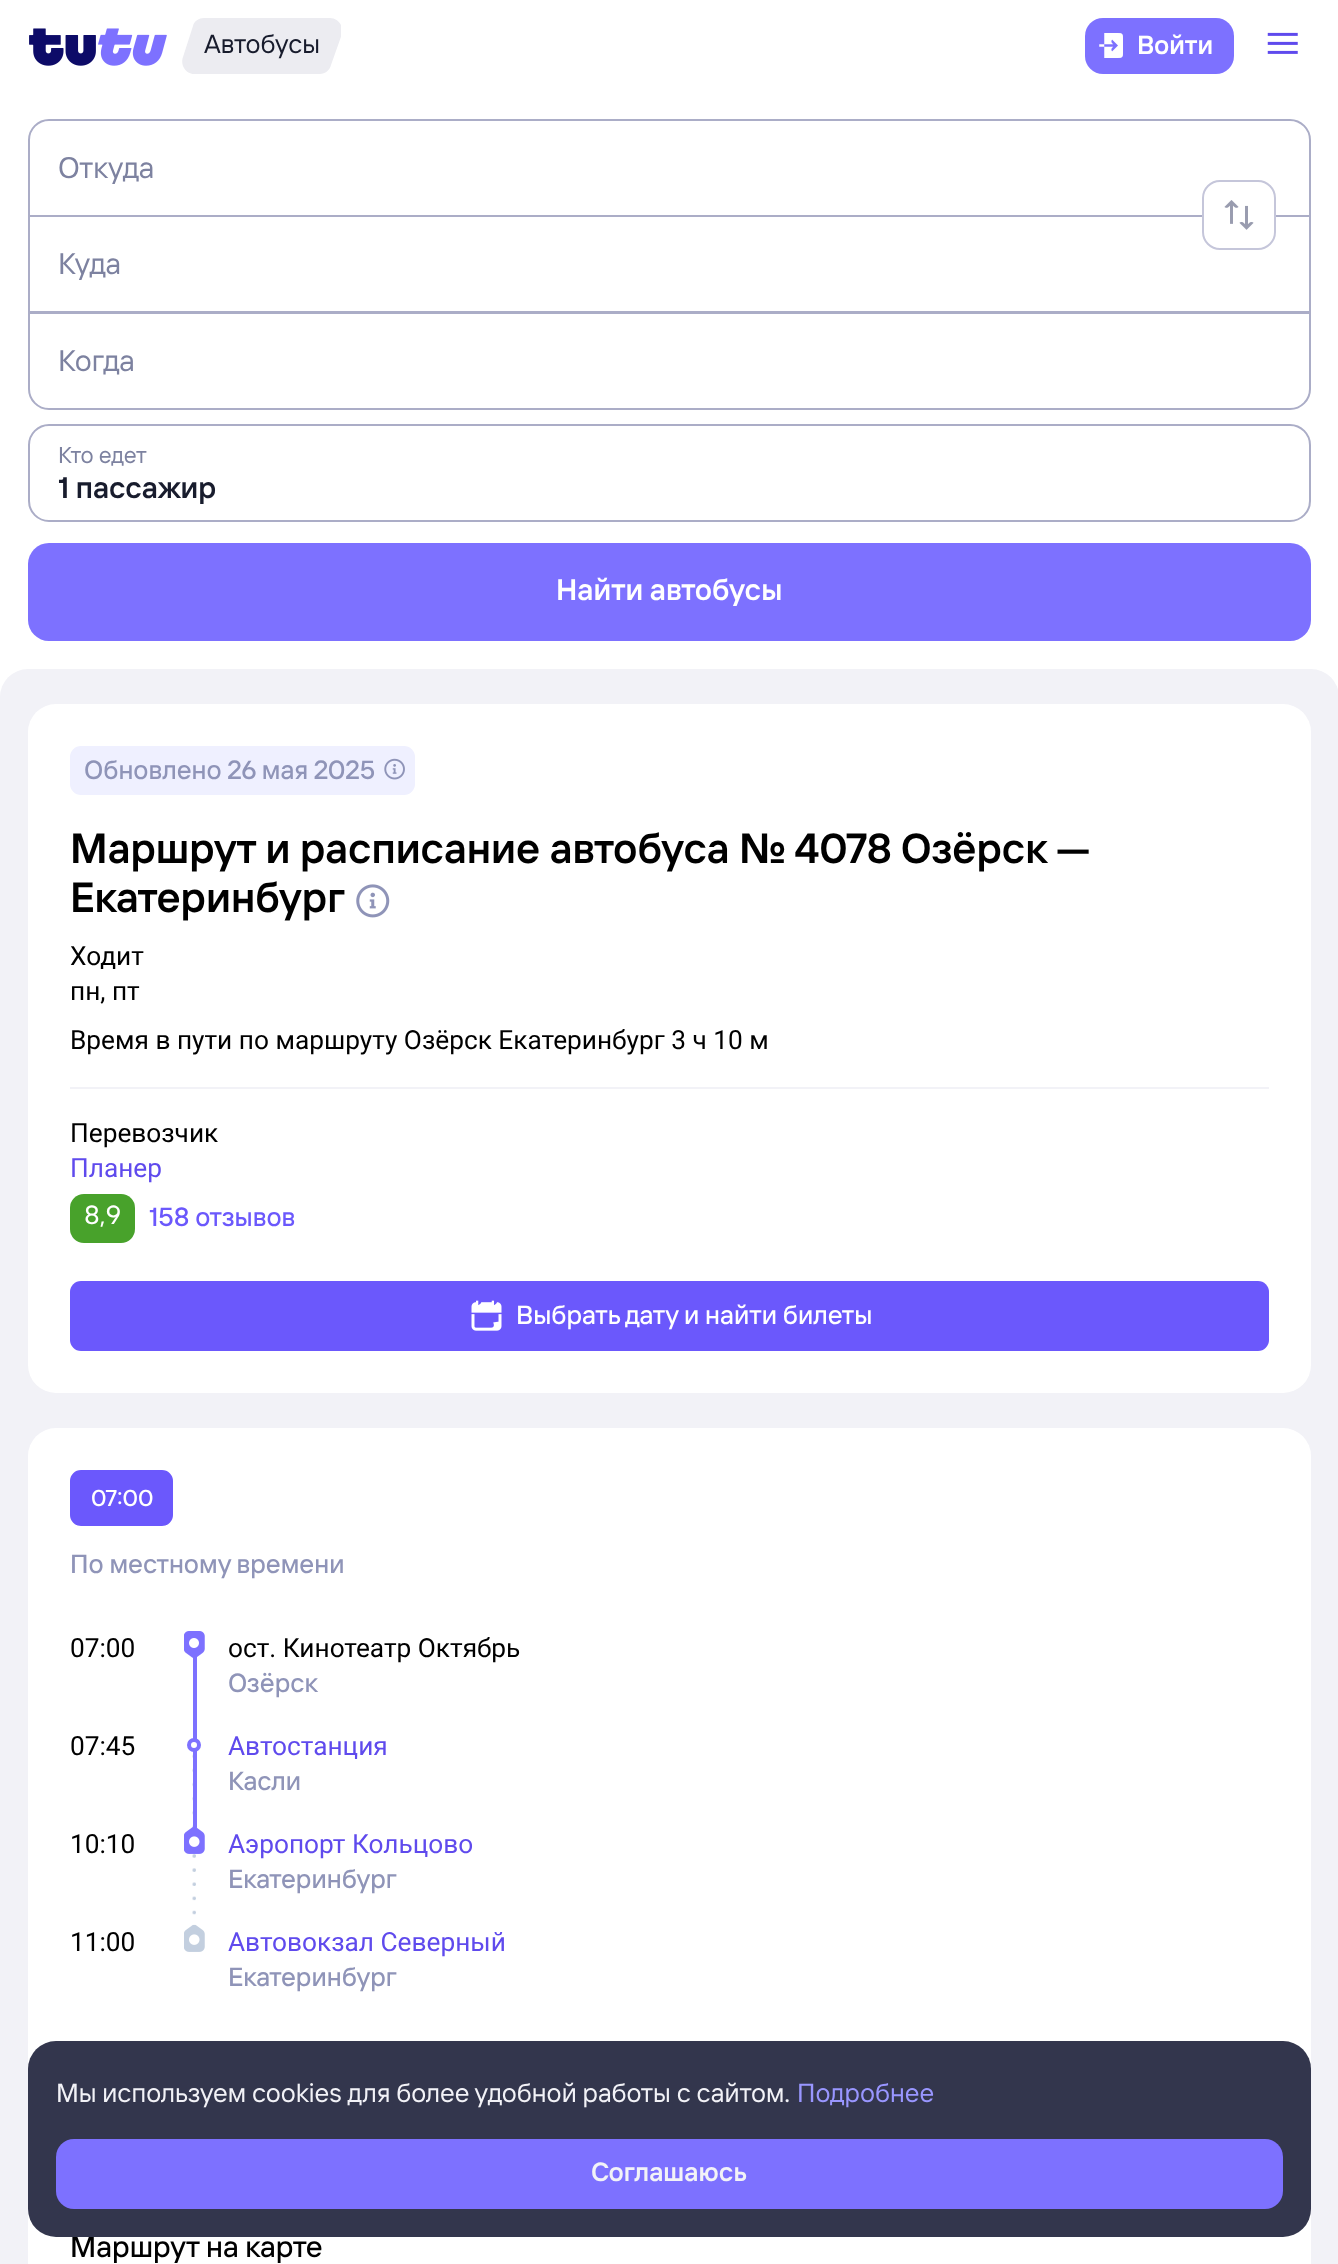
<svg xmlns="http://www.w3.org/2000/svg" width="1338" height="2264" viewBox="0 0 1338 2264">
  <defs>
    <clipPath id="clip1"><rect x="319" y="18" width="22" height="56"/></clipPath>
  </defs>
  <rect width="100%" height="100%" fill="#ffffff"/>
  <image x="29" y="28" width="138" height="38" href="img1.png"/>
  <path d="M205 74H194C186 74 180 65 183 57L193 26C194 21 199 18 204 18H205Z" fill="#ececf1"/>
  <rect x="205" y="18" width="114" height="56" fill="#ececf1"/>
  <text x="204" y="53" font-family="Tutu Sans" font-size="26.25" fill="#181c2d">Автобусы</text>
  <g clip-path="url(#clip1)">
    <path d="M319 18H330C338 18 344 26 342 34L331 65C330 70 325 74 320 74H319Z" fill="#ececf1"/>
  </g>
  <rect x="1085" y="18" width="149" height="56" rx="18" fill="#7d71ff"/>
  <image x="1099" y="33" width="24" height="25" href="img2.png"/>
  <text x="1137" y="54" font-family="Tutu Sans" font-size="26.25" font-weight="600" fill="#ffffff">Войти</text>
  <image x="1267" y="32" width="31" height="22" href="img3.png"/>
  <path d="M49 120H1290C1301 120 1310 129 1310 140V216H29V140C29 129 38 120 49 120Z" fill="none" stroke="#abadc7" stroke-width="2"/>
  <text x="58" y="178" font-family="Tutu Sans" font-size="29.75" fill="#7d82a0">Откуда</text>
  <path d="M29 313H1310V389C1310 400 1301 409 1290 409H49C38 409 29 400 29 389Z" fill="none" stroke="#abadc7" stroke-width="2"/>
  <rect x="29" y="216" width="1281" height="96" fill="none" stroke="#abadc7" stroke-width="2"/>
  <rect x="1203" y="181" width="72" height="68" rx="17" fill="#ffffff" stroke="#c5c6da" stroke-width="2"/>
  <image x="1224" y="200" width="30" height="30" href="img4.png"/>
  <text x="58" y="274" font-family="Tutu Sans" font-size="29.75" fill="#7d82a0">Куда</text>
  <text x="58" y="371" font-family="Tutu Sans" font-size="29.75" fill="#7d82a0">Когда</text>
  <rect x="29" y="425" width="1281" height="96" rx="20" fill="none" stroke="#abadc7" stroke-width="2"/>
  <text x="58" y="463" font-family="Tutu Sans" font-size="23" fill="#7d82a0">Кто едет</text>
  <text x="58" y="498" font-family="Tutu Sans" font-size="29.75" font-weight="600" fill="#181c2d">1 пассажир</text>
  <rect x="28" y="543" width="1283" height="98" rx="21" fill="#7d71ff"/>
  <text x="556" y="600" font-family="Tutu Sans" font-size="29.75" font-weight="600" fill="#ffffff">Найти автобусы</text>
  <rect x="0" y="669" width="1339" height="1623" rx="28" fill="#f2f2f7"/>
  <rect x="28" y="704" width="1283" height="689" rx="28" fill="#ffffff"/>
  <rect x="70" y="746" width="345" height="49" rx="11" fill="#eff0ff"/>
  <text x="84" y="779" font-family="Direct" font-size="26.25" font-weight="500" fill="#8f94b8">Обновлено</text>
  <text x="227" y="779" font-family="Direct" font-size="26.25" font-weight="500" fill="#8f94b8">26 мая 2025</text>
  <image x="384" y="758" width="21" height="22" href="img5.png"/>
  <text x="70" y="863" font-family="Tutu Sans" font-size="42" font-weight="600" fill="#000000">Маршрут и расписание автобуса № 4078 Озёрск —</text>
  <text x="70" y="912" font-family="Tutu Sans" font-size="42" font-weight="600" fill="#000000">Екатеринбург</text>
  <image x="356" y="884" width="34" height="34" href="img6.png"/>
  <text x="70" y="965" font-family="Roboto" font-size="26.25" fill="#000000">Ходит</text>
  <text x="70" y="1000" font-family="Roboto" font-size="26.25" fill="#000000">пн, пт</text>
  <text x="70" y="1049" font-family="Roboto" font-size="26.25" fill="#000000">Время в пути по маршруту Озёрск Екатеринбург 3 ч 10 м</text>
  <rect x="70" y="1087" width="1199" height="2" fill="#f2f2f7"/>
  <text x="70" y="1142" font-family="Roboto" font-size="26.25" fill="#000000">Перевозчик</text>
  <text x="70" y="1177" font-family="Roboto" font-size="26.25" fill="#5f4aed">Планер</text>
  <rect x="70" y="1194" width="65" height="49" rx="14" fill="#48a22b"/>
  <text x="84" y="1224" font-family="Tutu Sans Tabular" font-size="26.25" fill="#ffffff">8,9</text>
  <text x="149" y="1226" font-family="Direct" font-size="26.25" font-weight="500" fill="#6b58fc">158 отзывов</text>
  <rect x="70" y="1281" width="1199" height="70" rx="11" fill="#6b58fc"/>
  <image x="471" y="1300" width="31" height="31" href="img7.png"/>
  <text x="516" y="1324" font-family="Direct" font-size="26.25" font-weight="500" fill="#ffffff">Выбрать дату и найти билеты</text>
  <rect x="28" y="1428" width="1283" height="728" rx="28" fill="#ffffff"/>
  <rect x="71" y="1471" width="101" height="54" rx="10" fill="#6b58fc" stroke="#6b58fc" stroke-width="2"/>
  <text x="91" y="1506" font-family="Direct" font-size="23" font-weight="500" fill="#ffffff">07:00</text>
  <text x="70" y="1573" font-family="Direct" font-size="26.25" font-weight="500" fill="#8f94b8">По местному времени</text>
  <text x="70" y="1657" font-family="Roboto" font-size="26.25" fill="#000000">07:00</text>
  <image x="192" y="1754" width="4" height="172" href="img10.png"/>
  <rect x="193" y="1657" width="4" height="174" fill="#7d71ff"/>
  <image x="184" y="1631" width="21" height="27" href="img8.png"/>
  <text x="228" y="1657" font-family="Roboto" font-size="26.25" fill="#000000">ост. Кинотеатр Октябрь</text>
  <text x="228" y="1692" font-family="Direct" font-size="26.25" font-weight="500" fill="#8f94b8">Озёрск</text>
  <text x="70" y="1755" font-family="Roboto" font-size="26.25" fill="#000000">07:45</text>
  <circle cx="194" cy="1745" r="5" fill="#ffffff" stroke="#7d71ff" stroke-width="4"/>
  <text x="228" y="1755" font-family="Roboto" font-size="26.25" fill="#5f4aed">Автостанция</text>
  <text x="228" y="1790" font-family="Direct" font-size="26.25" font-weight="500" fill="#8f94b8">Касли</text>
  <text x="70" y="1853" font-family="Roboto" font-size="26.25" fill="#000000">10:10</text>
  <image x="184" y="1827" width="21" height="27" href="img9.png"/>
  <text x="228" y="1853" font-family="Roboto" font-size="26.25" fill="#5f4aed">Аэропорт Кольцово</text>
  <text x="228" y="1888" font-family="Direct" font-size="26.25" font-weight="500" fill="#8f94b8">Екатеринбург</text>
  <text x="70" y="1951" font-family="Roboto" font-size="26.25" fill="#000000">11:00</text>
  <image x="184" y="1925" width="21" height="27" href="img11.png"/>
  <text x="228" y="1951" font-family="Roboto" font-size="26.25" fill="#5f4aed">Автовокзал Северный</text>
  <text x="228" y="1986" font-family="Direct" font-size="26.25" font-weight="500" fill="#8f94b8">Екатеринбург</text>
  <rect x="28" y="2184" width="1283" height="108" rx="28" fill="#ffffff"/>
  <text x="70" y="2257" font-family="Direct" font-size="29.75" font-weight="500" fill="#000000">Маршрут на карте</text>
  <rect x="28" y="2041" width="1283" height="196" rx="28" fill="#33364d"/>
  <text x="56" y="2102" font-family="Tutu Sans" font-size="26.25" fill="#f2f2f7">Мы используем cookies для более удобной работы с сайтом.</text>
  <text x="797" y="2102" font-family="Tutu Sans" font-size="26.25" fill="#9996ff">Подробнее</text>
  <rect x="56" y="2139" width="1227" height="70" rx="18" fill="#7d71ff"/>
  <text x="591" y="2181" font-family="Tutu Sans" font-size="26.25" font-weight="600" fill="#f2f2f7">Соглашаюсь</text>
</svg>
